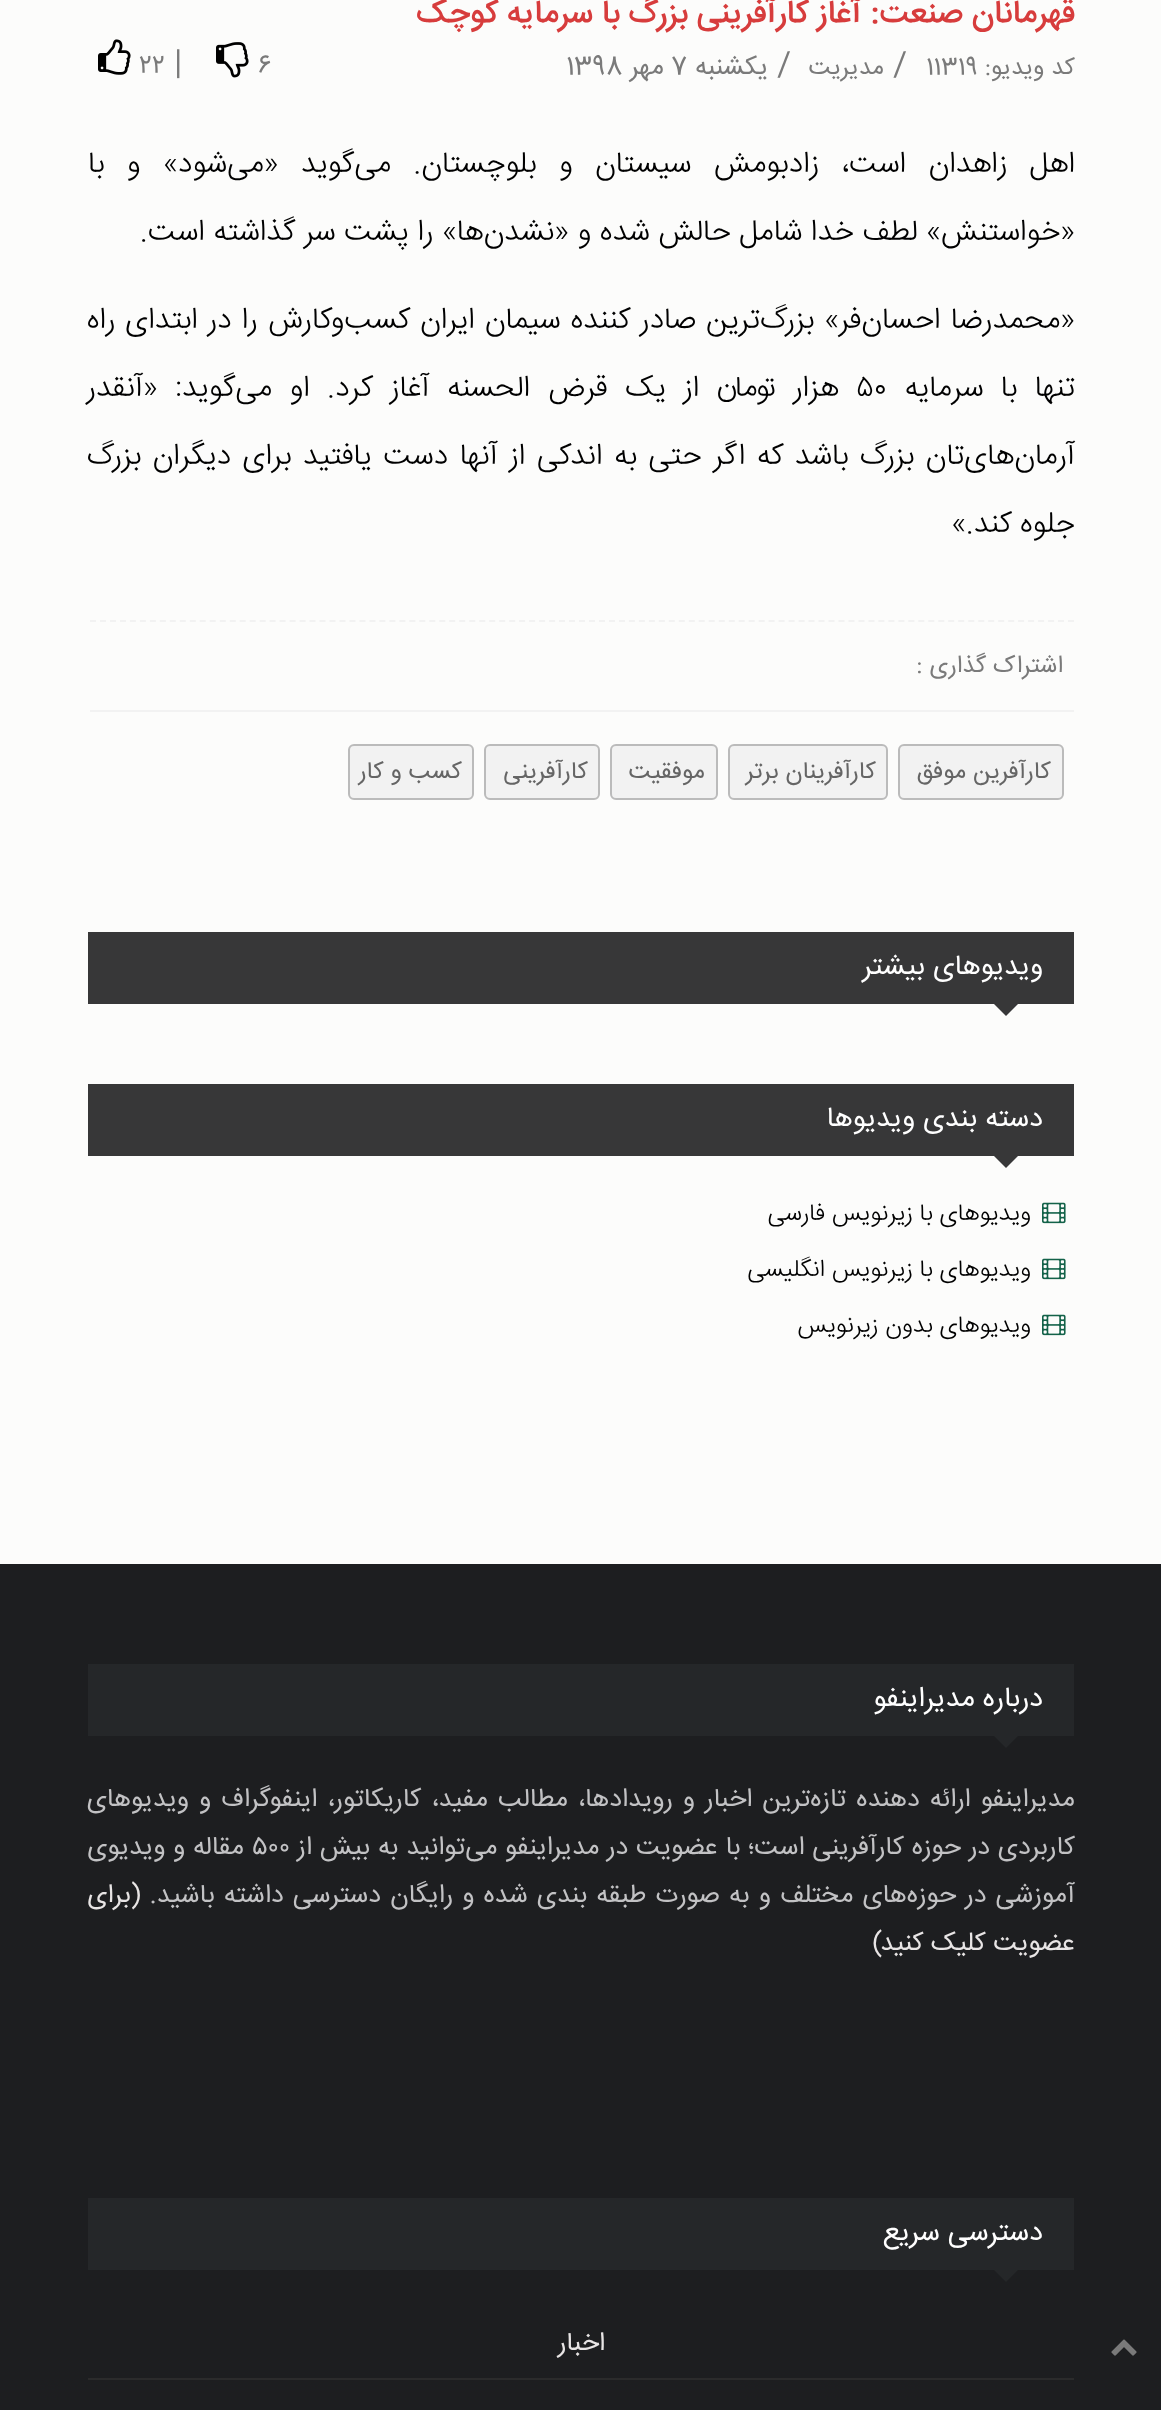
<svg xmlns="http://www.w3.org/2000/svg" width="1161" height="2410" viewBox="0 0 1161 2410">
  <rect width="100%" height="100%" fill="#fcfcfb"/>
  <text x="1075" y="22" font-family="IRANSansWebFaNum" font-size="32" font-weight="500" direction="rtl" fill="#d73c3c">قهرمانان صنعت: آغاز کارآفرینی بزرگ با سرمایه کوچک</text>
  <text x="1075" y="74" font-family="IRANSansWebFaNum" font-size="24" direction="rtl" fill="#7a7a7a">کد ویدیو:</text>
  <text x="926" y="74" font-family="IRANSansWebFaNum" font-size="24" fill="#7a7a7a">11319</text>
  <text x="893" y="74" font-family="IRANSansWebFaNum" font-size="32" fill="#7a7a7a">/</text>
  <text x="884" y="74" font-family="IRANSansWebFaNum" font-size="24" direction="rtl" fill="#7a7a7a">مدیریت</text>
  <text x="777" y="74" font-family="IRANSansWebFaNum" font-size="32" fill="#7a7a7a">/</text>
  <text x="768" y="74" font-family="IRANSansWebFaNum" font-size="26" direction="rtl" fill="#7a7a7a">یکشنبه</text>
  <text x="671" y="74" font-family="IRANSansWebFaNum" font-size="26" fill="#7a7a7a">7</text>
  <text x="664" y="74" font-family="IRANSansWebFaNum" font-size="26" direction="rtl" fill="#7a7a7a">مهر</text>
  <text x="566" y="74" font-family="IRANSansWebFaNum" font-size="26" fill="#7a7a7a">1398</text>
  <text x="258" y="72" font-family="IRANSansWebFaNum" font-size="24" fill="#7a7a7a">6</text>
  <image x="216" y="42" width="33" height="36" href="img1.png"/>
  <text x="174" y="72" font-family="IRANSansWebFaNum" font-size="32" fill="#7a7a7a">|</text>
  <text x="139" y="72" font-family="IRANSansWebFaNum" font-size="24" fill="#7a7a7a">22</text>
  <image x="98" y="39" width="33" height="36" href="img2.png"/>
  <text x="1075" y="172" word-spacing="14" font-family="IRANSansWebFaNum" font-size="30" font-weight="300" direction="rtl" fill="#000000">اهل زاهدان است، زادبومش سیستان و بلوچستان. می‌گوید «می‌شود» و با</text>
  <text x="1075" y="240" font-family="IRANSansWebFaNum" font-size="30" font-weight="300" direction="rtl" fill="#000000">«خواستنش» لطف خدا شامل حالش شده و «نشدن‌ها» را پشت سر گذاشته است.</text>
  <text x="1075" y="328" word-spacing="1.5" font-family="IRANSansWebFaNum" font-size="30" font-weight="300" direction="rtl" fill="#000000">«محمدرضا احسان‌فر» بزرگ‌ترین صادر کننده سیمان ایران کسب‌وکارش را در ابتدای راه</text>
  <text x="1075" y="396" word-spacing="9" font-family="IRANSansWebFaNum" font-size="30" font-weight="300" direction="rtl" fill="#000000">تنها با سرمایه</text>
  <text x="856" y="396" font-family="IRANSansWebFaNum" font-size="30" font-weight="300" fill="#000000">۵۰</text>
  <text x="839" y="396" word-spacing="9" font-family="IRANSansWebFaNum" font-size="30" font-weight="300" direction="rtl" fill="#000000">هزار تومان از یک قرض الحسنه آغاز کرد. او می‌گوید: «آنقدر</text>
  <text x="1075" y="464" word-spacing="3" font-family="IRANSansWebFaNum" font-size="30" font-weight="300" direction="rtl" fill="#000000">آرمان‌های‌تان بزرگ باشد که اگر حتی به اندکی از آنها دست‌ یافتید برای دیگران بزرگ</text>
  <text x="1075" y="532" font-family="IRANSansWebFaNum" font-size="30" font-weight="300" direction="rtl" fill="#000000">جلوه کند.»</text>
  <path d="M90 621H1074" fill="none" stroke="#f2f2f2" stroke-width="2" stroke-dasharray="6 3.98"/>
  <rect x="90" y="710" width="984" height="2" fill="#f2f2f2"/>
  <text x="1063" y="672" font-family="IRANSansWebFaNum" font-size="24" direction="rtl" fill="#7a7a7a">اشتراک گذاری :</text>
  <rect x="899" y="745" width="164" height="54" rx="5" fill="#f2f2f2" stroke="#bbbbbb" stroke-width="2"/>
  <text x="1051" y="778" font-family="IRANSansWebFaNum" font-size="24" direction="rtl" fill="#656565">کارآفرین موفق</text>
  <rect x="729" y="745" width="158" height="54" rx="5" fill="#f2f2f2" stroke="#bbbbbb" stroke-width="2"/>
  <text x="876" y="778" font-family="IRANSansWebFaNum" font-size="24" direction="rtl" fill="#656565">کارآفرینان برتر</text>
  <rect x="611" y="745" width="106" height="54" rx="5" fill="#f2f2f2" stroke="#bbbbbb" stroke-width="2"/>
  <text x="705" y="778" font-family="IRANSansWebFaNum" font-size="24" direction="rtl" fill="#656565">موفقیت</text>
  <rect x="485" y="745" width="114" height="54" rx="5" fill="#f2f2f2" stroke="#bbbbbb" stroke-width="2"/>
  <text x="588" y="778" font-family="IRANSansWebFaNum" font-size="24" direction="rtl" fill="#656565">کارآفرینی</text>
  <rect x="349" y="745" width="124" height="54" rx="5" fill="#f2f2f2" stroke="#bbbbbb" stroke-width="2"/>
  <text x="462" y="778" font-family="IRANSansWebFaNum" font-size="24" direction="rtl" fill="#656565">کسب و کار</text>
  <rect x="88" y="932" width="986" height="72" fill="#373738"/>
  <text x="1043" y="974" font-family="IRANSansWebFaNum" font-size="28" direction="rtl" fill="#ffffff">ویدیوهای بیشتر</text>
  <path d="M994 1004H1018L1006 1016Z" fill="#373738"/>
  <rect x="88" y="1084" width="986" height="72" fill="#373738"/>
  <text x="1043" y="1126" font-family="IRANSansWebFaNum" font-size="28" direction="rtl" fill="#ffffff">دسته بندی ویدیوها</text>
  <path d="M994 1156H1018L1006 1168Z" fill="#373738"/>
  <image x="1042" y="1202" width="24" height="22" href="img3.png"/>
  <text x="1031" y="1220" font-family="IRANSansWebFaNum" font-size="24" font-weight="300" direction="rtl" fill="#000000">ویدیوهای با زیرنویس فارسی</text>
  <image x="1042" y="1258" width="24" height="22" href="img3.png"/>
  <text x="1031" y="1276" font-family="IRANSansWebFaNum" font-size="24" font-weight="300" direction="rtl" fill="#000000">ویدیوهای با زیرنویس انگلیسی</text>
  <image x="1042" y="1314" width="24" height="22" href="img3.png"/>
  <text x="1031" y="1332" font-family="IRANSansWebFaNum" font-size="24" font-weight="300" direction="rtl" fill="#000000">ویدیوهای بدون زیرنویس</text>
  <rect x="0" y="1564" width="1161" height="846" fill="#1d1e20"/>
  <image x="1111" y="2339" width="26" height="17" href="img4.png"/>
  <rect x="88" y="1664" width="986" height="72" fill="#252729"/>
  <text x="1043" y="1706" font-family="IRANSansWebFaNum" font-size="28" direction="rtl" fill="#ffffff">درباره مدیراینفو</text>
  <path d="M994 1736H1018L1006 1748Z" fill="#252729"/>
  <text x="1075" y="1806" word-spacing="2.75" font-family="IRANSansWebFaNum" font-size="26" direction="rtl" fill="#c2c2c4">مدیراینفو ارائه دهنده تازه‌ترین اخبار و رویدادها، مطالب مفید، کاریکاتور، اینفوگراف و ویدیوهای</text>
  <text x="1075" y="1854" word-spacing="0.4" font-family="IRANSansWebFaNum" font-size="26" direction="rtl" fill="#c2c2c4">کاربردی در حوزه کارآفرینی است؛ با عضویت در مدیراینفو می‌توانید به بیش از</text>
  <text x="252" y="1854" font-family="IRANSansWebFaNum" font-size="26" fill="#c2c2c4">۵۰۰</text>
  <text x="244" y="1854" word-spacing="0.4" font-family="IRANSansWebFaNum" font-size="26" direction="rtl" fill="#c2c2c4">مقاله و ویدیوی</text>
  <text x="1075" y="1902" word-spacing="1.7" font-family="IRANSansWebFaNum" font-size="26" direction="rtl" fill="#c2c2c4">آموزشی در حوزه‌های مختلف و به صورت طبقه بندی شده و رایگان دسترسی داشته باشید.</text>
  <text x="141" y="1902" font-family="IRANSansWebFaNum" font-size="26" direction="rtl" fill="#e8e5e5">(برای</text>
  <text x="1075" y="1950" font-family="IRANSansWebFaNum" font-size="26" direction="rtl" fill="#e8e5e5">عضویت کلیک کنید)</text>
  <rect x="88" y="2198" width="986" height="72" fill="#252729"/>
  <text x="1043" y="2240" font-family="IRANSansWebFaNum" font-size="28" direction="rtl" fill="#ffffff">دسترسی سریع</text>
  <path d="M994 2270H1018L1006 2282Z" fill="#252729"/>
  <rect x="88" y="2378" width="986" height="2" fill="#2b2b2b"/>
  <text x="605" y="2350" font-family="IRANSansWebFaNum" font-size="26" direction="rtl" fill="#e8e5e5">اخبار</text>
</svg>
